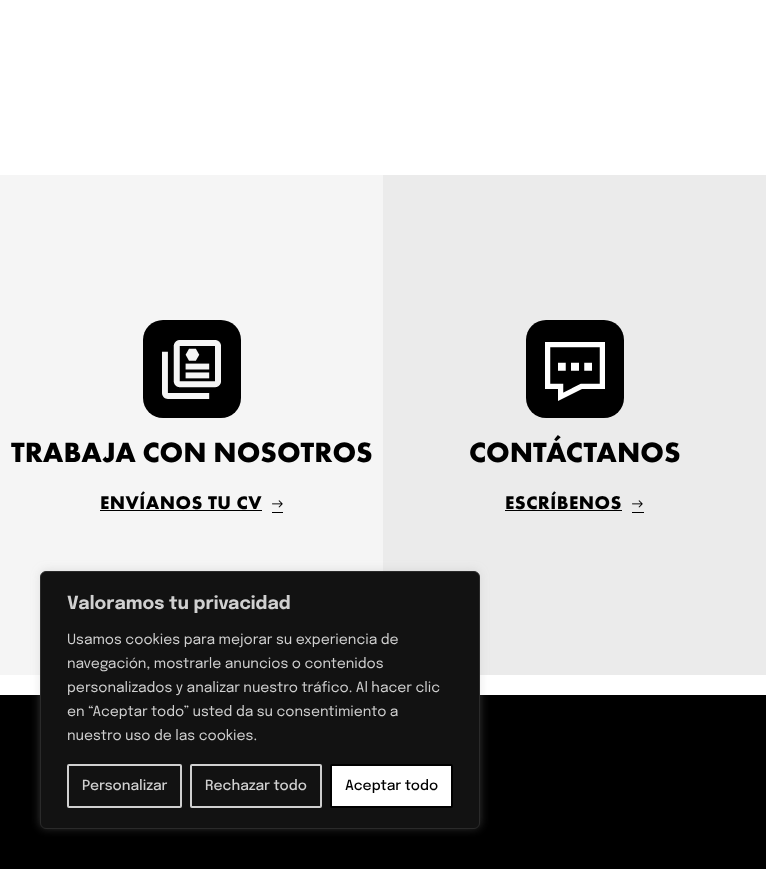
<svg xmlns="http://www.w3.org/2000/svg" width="766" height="869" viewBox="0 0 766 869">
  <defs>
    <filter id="blur1" x="-50%" y="-200%" width="200%" height="500%"><feGaussianBlur stdDeviation="5"/></filter>
  </defs>
  <rect width="100%" height="100%" fill="#ffffff"/>
  <rect x="0" y="175" width="383" height="500" fill="#f5f5f5"/>
  <image x="143" y="320" width="98" height="98" href="img1.png"/>
  <text x="11" y="462" font-family="Futura PT" font-size="29" font-weight="bold" fill="#000000">TRABAJA CON NOSOTROS</text>
  <text x="100" y="509" font-family="Futura PT" font-size="19" font-weight="bold" letter-spacing="0.5" fill="#000000">ENVÍANOS TU CV</text>
  <rect x="100" y="510" width="162" height="1" fill="#000000"/>
  <image x="272" y="500" width="11" height="8" href="img2.png"/>
  <rect x="272" y="512" width="11" height="1" fill="#000000"/>
  <rect x="383" y="175" width="383" height="500" fill="#ebebeb"/>
  <image x="526" y="320" width="98" height="98" href="img3.png"/>
  <text x="469" y="462" font-family="Futura PT" font-size="29" font-weight="bold" fill="#000000">CONTÁCTANOS</text>
  <text x="505" y="509" font-family="Futura PT" font-size="19" font-weight="bold" letter-spacing="0.5" fill="#000000">ESCRÍBENOS</text>
  <rect x="505" y="510" width="117" height="1" fill="#000000"/>
  <image x="632" y="500" width="11" height="8" href="img4.png"/>
  <rect x="632" y="512" width="12" height="1" fill="#000000"/>
  <rect x="0" y="695" width="766" height="174" fill="#000000"/>
  <rect x="40" y="570" width="440" height="258" rx="6" fill="#acabab" fill-opacity="0.3" filter="url(#blur1)"/>
  <rect x="40.5" y="571.5" width="439" height="257" rx="5.5" fill="#121212" stroke="#2a2a2a"/>
  <text x="67" y="609" font-family="Epilogue" font-size="18" font-weight="bold" fill="#d0d0d0">Valoramos tu privacidad</text>
  <text x="67" y="644" font-family="Epilogue" font-size="14" fill="#d0d0d0">Usamos cookies para mejorar su experiencia de</text>
  <text x="67" y="668" font-family="Epilogue" font-size="14" fill="#d0d0d0">navegación, mostrarle anuncios o contenidos</text>
  <text x="67" y="692" font-family="Epilogue" font-size="14" fill="#d0d0d0">personalizados y analizar nuestro tráfico. Al hacer clic</text>
  <text x="67" y="716" font-family="Epilogue" font-size="14" fill="#d0d0d0">en “Aceptar todo” usted da su consentimiento a</text>
  <text x="67" y="740" font-family="Epilogue" font-size="14" fill="#d0d0d0">nuestro uso de las cookies.</text>
  <rect x="68" y="765" width="113" height="42" rx="1" fill="none" stroke="#d0d0d0" stroke-width="2"/>
  <text x="82" y="790" font-family="Epilogue" font-size="14" font-weight="500" fill="#d0d0d0">Personalizar</text>
  <rect x="191" y="765" width="130" height="42" rx="1" fill="none" stroke="#d0d0d0" stroke-width="2"/>
  <text x="205" y="790" font-family="Epilogue" font-size="14" font-weight="500" fill="#d0d0d0">Rechazar todo</text>
  <rect x="331" y="765" width="121" height="42" rx="1" fill="#ffffff" stroke="#000000" stroke-width="2"/>
  <text x="345" y="790" font-family="Epilogue" font-size="14" font-weight="500" fill="#000000">Aceptar todo</text>
</svg>
